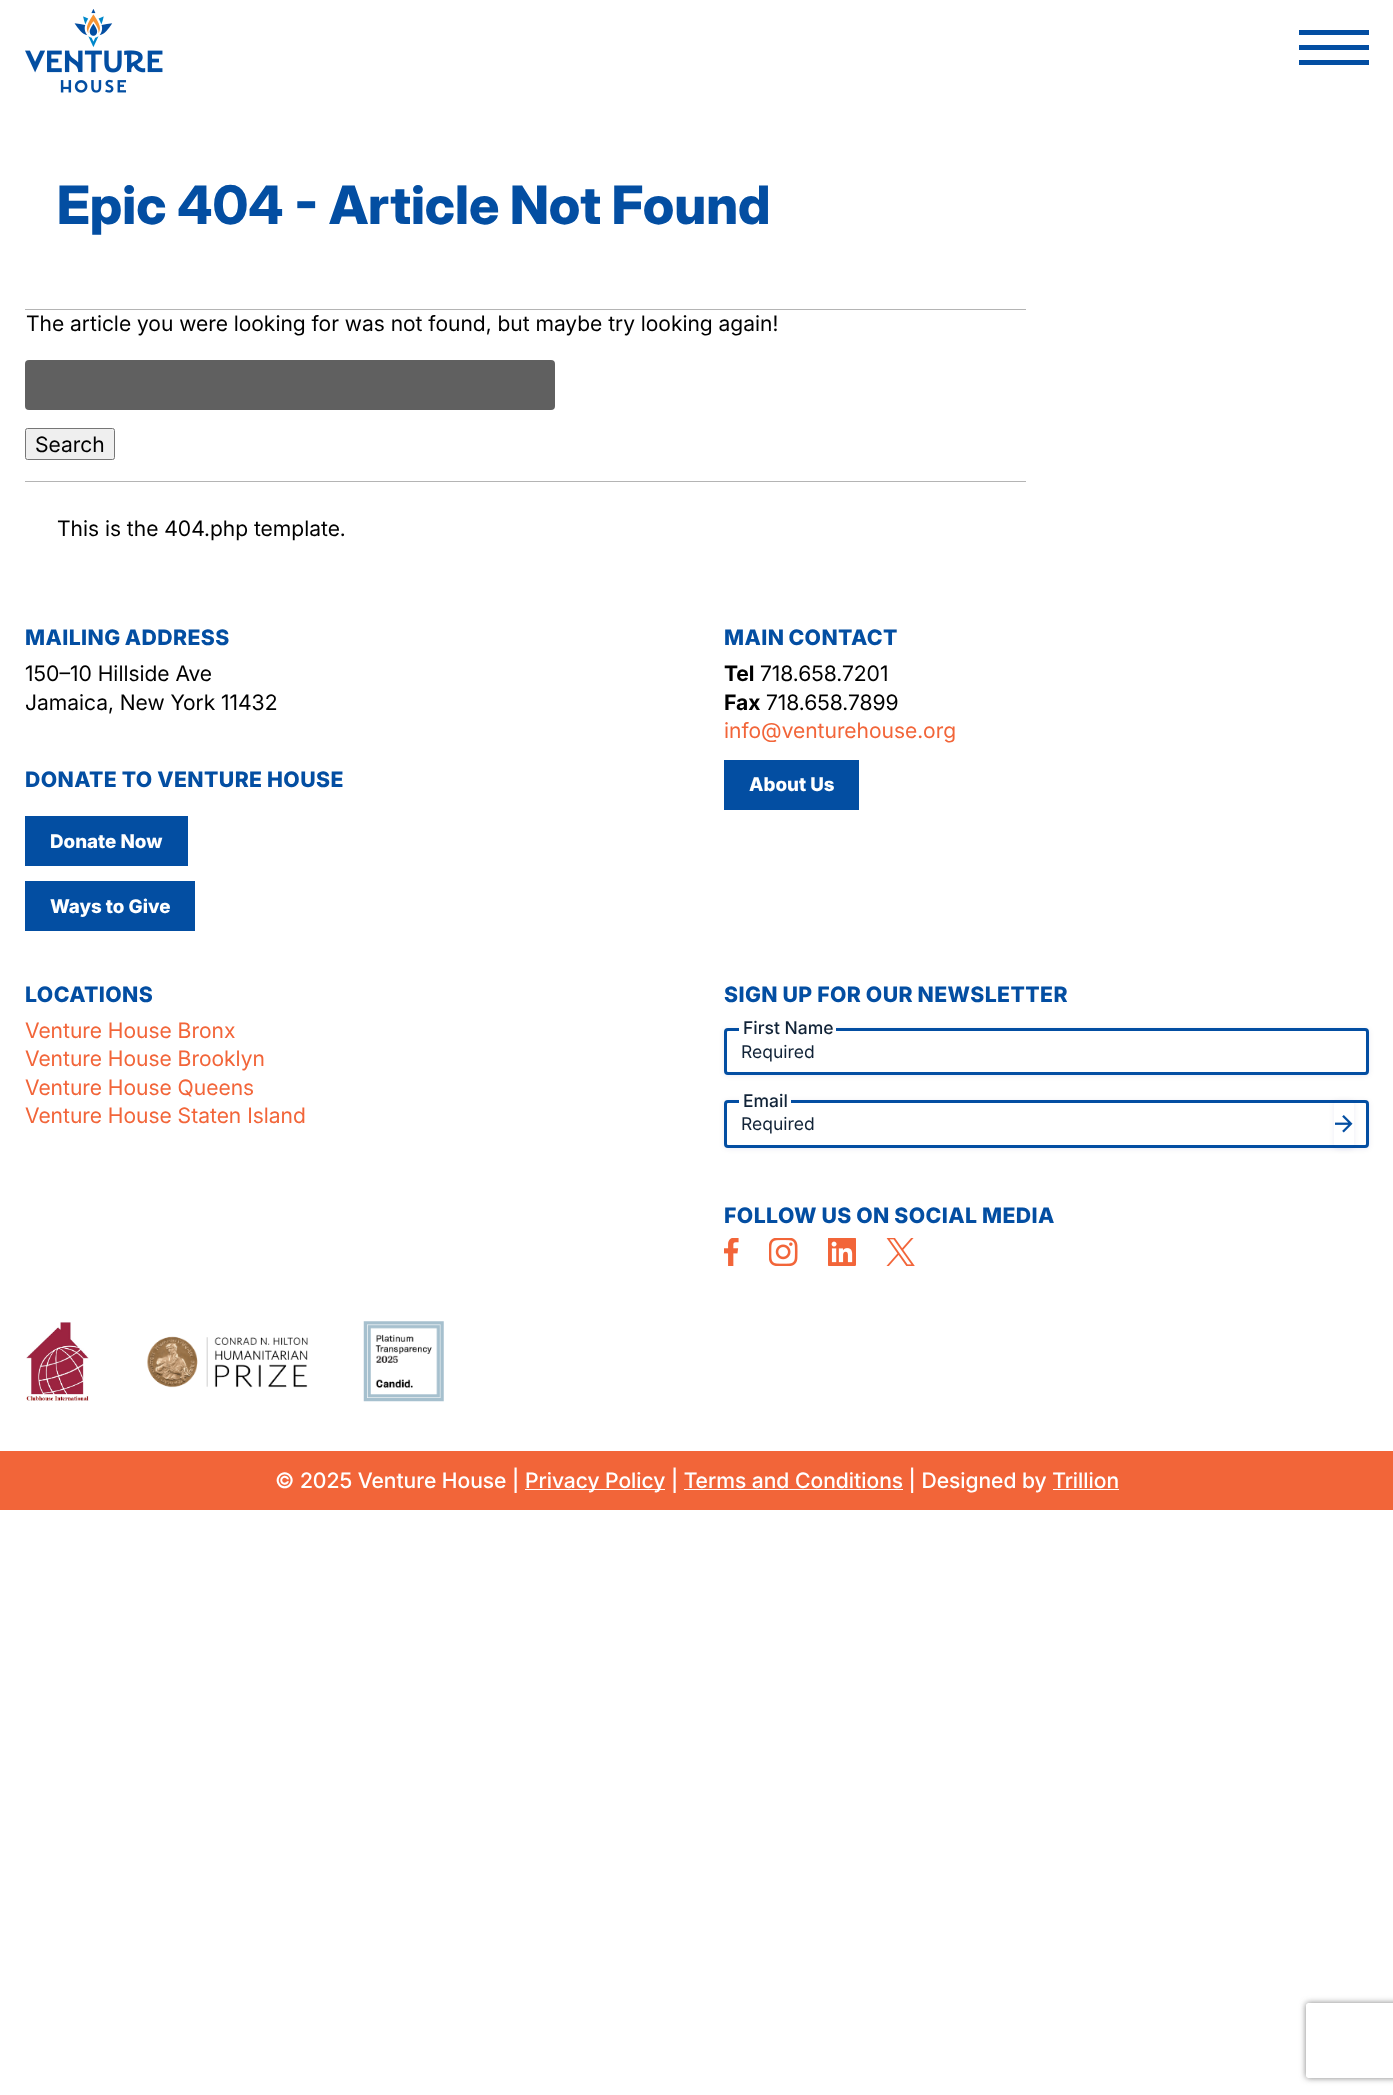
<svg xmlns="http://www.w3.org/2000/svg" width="1393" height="2095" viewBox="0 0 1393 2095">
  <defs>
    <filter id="blur1" x="-50%" y="-200%" width="200%" height="500%"><feGaussianBlur stdDeviation="2.5"/></filter>
    <clipPath id="clip1"><path d="M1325 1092H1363V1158H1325ZM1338 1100H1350C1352 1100 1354 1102 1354 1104V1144C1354 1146 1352 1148 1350 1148H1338C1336 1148 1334 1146 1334 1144V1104C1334 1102 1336 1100 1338 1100Z" clip-rule="evenodd"/></clipPath>
    <clipPath id="clip2"><path d="M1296 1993H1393V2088H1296ZM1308.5 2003H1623.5C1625 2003 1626 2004 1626 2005.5V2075.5C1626 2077 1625 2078 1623.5 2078H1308.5C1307 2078 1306 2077 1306 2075.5V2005.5C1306 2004 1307 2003 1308.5 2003Z" clip-rule="evenodd"/></clipPath>
    <filter id="blur2" x="-50%" y="-200%" width="200%" height="500%"><feGaussianBlur stdDeviation="3"/></filter>
  </defs>
  <rect width="100%" height="100%" fill="#ffffff"/>
  <image x="25" y="9" width="138" height="84" href="img1.png"/>
  <rect x="1299" y="30" width="70" height="5" fill="#034ea2"/>
  <rect x="1299" y="45" width="70" height="5" fill="#034ea2"/>
  <rect x="1299" y="60" width="70" height="5" fill="#034ea2"/>
  <rect x="25" y="309" width="1001" height="1" fill="#b4b4b4"/>
  <text x="57" y="224" font-family="Inter" font-size="53.1" font-weight="800" fill="#034ea2">Epic 404 - Article Not Found</text>
  <text x="26" y="331" font-family="Inter" font-size="21.25" fill="#000000">The article you were looking for was not found, but maybe try looking again!</text>
  <rect x="25" y="360" width="530" height="50" rx="4" fill="#606060"/>
  <rect x="25.5" y="428.5" width="89" height="31" rx="2" fill="#efefef" stroke="#767676"/>
  <text x="35" y="452" font-family="Inter" font-size="21.25" fill="#000000">Search</text>
  <rect x="25" y="481" width="1001" height="1" fill="#b4b4b4"/>
  <text x="57" y="536" font-family="Inter" font-size="21.25" fill="#000000">This is the 404.php template.</text>
  <text x="25" y="645" word-spacing="-1" font-family="'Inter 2'" font-size="21.25" font-weight="800" letter-spacing="0.4" fill="#034ea2">MAILING ADDRESS</text>
  <text x="25" y="681" font-family="Inter" font-size="21.25" fill="#000000">150–10 Hillside Ave</text>
  <text x="25" y="710" font-family="Inter" font-size="21.25" fill="#000000">Jamaica, New York 11432</text>
  <text x="25" y="787" word-spacing="-0.5" font-family="'Inter 2'" font-size="21.25" font-weight="800" letter-spacing="0.4" fill="#034ea2">DONATE TO VENTURE HOUSE</text>
  <rect x="25" y="816" width="163" height="50" fill="#034ea2"/>
  <text x="50" y="848" font-family="'Inter 2'" font-size="18.75" font-weight="800" fill="#ffffff">Donate Now</text>
  <rect x="25" y="881" width="170" height="50" fill="#034ea2"/>
  <text x="50" y="913" font-family="'Inter 2'" font-size="18.75" font-weight="800" fill="#ffffff">Ways to Give</text>
  <text x="724" y="645" word-spacing="-1" font-family="'Inter 2'" font-size="21.25" font-weight="800" letter-spacing="0.4" fill="#034ea2">MAIN CONTACT</text>
  <text x="724" y="681" font-family="Inter" font-size="21.25" font-weight="bold" fill="#000000">Tel</text>
  <text x="760" y="681" font-family="Inter" font-size="21.25" fill="#000000">718.658.7201</text>
  <text x="724" y="710" font-family="Inter" font-size="21.25" font-weight="bold" fill="#000000">Fax</text>
  <text x="766" y="710" font-family="Inter" font-size="21.25" fill="#000000">718.658.7899</text>
  <text x="724" y="738" font-family="Inter" font-size="21.25" fill="#f26539">info@venturehouse.org</text>
  <rect x="724" y="760" width="135" height="50" fill="#034ea2"/>
  <text x="749" y="791" font-family="'Inter 2'" font-size="18.75" font-weight="800" fill="#ffffff">About Us</text>
  <text x="25" y="1002" font-family="'Inter 2'" font-size="21.25" font-weight="800" letter-spacing="0.4" fill="#034ea2">LOCATIONS</text>
  <text x="25" y="1038" font-family="Inter" font-size="21.25" fill="#f26539">Venture House Bronx</text>
  <text x="25" y="1066" font-family="Inter" font-size="21.25" fill="#f26539">Venture House Brooklyn</text>
  <text x="25" y="1095" font-family="Inter" font-size="21.25" fill="#f26539">Venture House Queens</text>
  <text x="25" y="1123" font-family="Inter" font-size="21.25" fill="#f26539">Venture House Staten Island</text>
  <text x="724" y="1002" word-spacing="-0.5" font-family="'Inter 2'" font-size="21.25" font-weight="800" letter-spacing="0.4" fill="#034ea2">SIGN UP FOR OUR NEWSLETTER</text>
  <rect x="724" y="1029" width="645" height="47" rx="4" fill="#121961" fill-opacity="0.08" filter="url(#blur1)"/>
  <rect x="725.5" y="1029.5" width="642" height="44" rx="2.5" fill="#ffffff" stroke="#034ea2" stroke-width="3"/>
  <rect x="739" y="1026" width="97" height="5" fill="#ffffff"/>
  <text x="743" y="1034" font-family="'Inter 2'" font-size="17.5" font-weight="500" fill="#112337">First Name</text>
  <text x="741" y="1058" font-family="'Inter 2'" font-size="17.5" fill="#112337">Required</text>
  <rect x="724" y="1101" width="645" height="48" rx="4" fill="#121961" fill-opacity="0.08" filter="url(#blur1)"/>
  <rect x="725.5" y="1101.5" width="642" height="45" rx="2.5" fill="#ffffff" stroke="#034ea2" stroke-width="3"/>
  <rect x="739" y="1098" width="52" height="5" fill="#ffffff"/>
  <text x="743" y="1107" font-family="'Inter 2'" font-size="17.5" font-weight="500" fill="#112337">Email</text>
  <text x="741" y="1130" font-family="'Inter 2'" font-size="17.5" fill="#112337">Required</text>
  <g clip-path="url(#clip1)">
    <rect x="1334" y="1101" width="20" height="48" rx="4" fill="#121961" fill-opacity="0.08" filter="url(#blur1)"/>
  </g>
  <image x="1335" y="1115" width="18" height="18" href="img2.png"/>
  <text x="724" y="1223" word-spacing="-0.5" font-family="'Inter 2'" font-size="21.25" font-weight="800" letter-spacing="0.4" fill="#034ea2">FOLLOW US ON SOCIAL MEDIA</text>
  <image x="724" y="1238" width="15" height="28" href="img3.png"/>
  <image x="769" y="1238" width="29" height="28" href="img4.png"/>
  <image x="828" y="1238" width="28" height="28" href="img5.png"/>
  <image x="886" y="1238" width="29" height="28" href="img6.png"/>
  <image x="26" y="1322" width="63" height="79" href="img7.png"/>
  <image x="147" y="1336" width="161" height="52" href="img8.png"/>
  <image x="363" y="1321" width="81" height="81" href="img9.png"/>
  <rect x="0" y="1451" width="1393" height="59" fill="#f26539"/>
  <text x="275" y="1488" font-family="Inter" font-size="21.25" font-weight="500" fill="#ffffff">© 2025 Venture House |</text>
  <rect x="525" y="1489" width="140" height="1" fill="#ffffff"/>
  <text x="525" y="1488" font-family="Inter" font-size="21.25" font-weight="500" fill="#ffffff">Privacy Policy | Terms and Conditions | Designed by Trillion</text>
  <rect x="684" y="1489" width="219" height="1" fill="#ffffff"/>
  <rect x="1053" y="1489" width="66" height="1" fill="#ffffff"/>
  <g clip-path="url(#clip2)">
    <rect x="1306" y="2003" width="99" height="75" rx="2.5" fill="#808080" filter="url(#blur2)"/>
  </g>
</svg>
